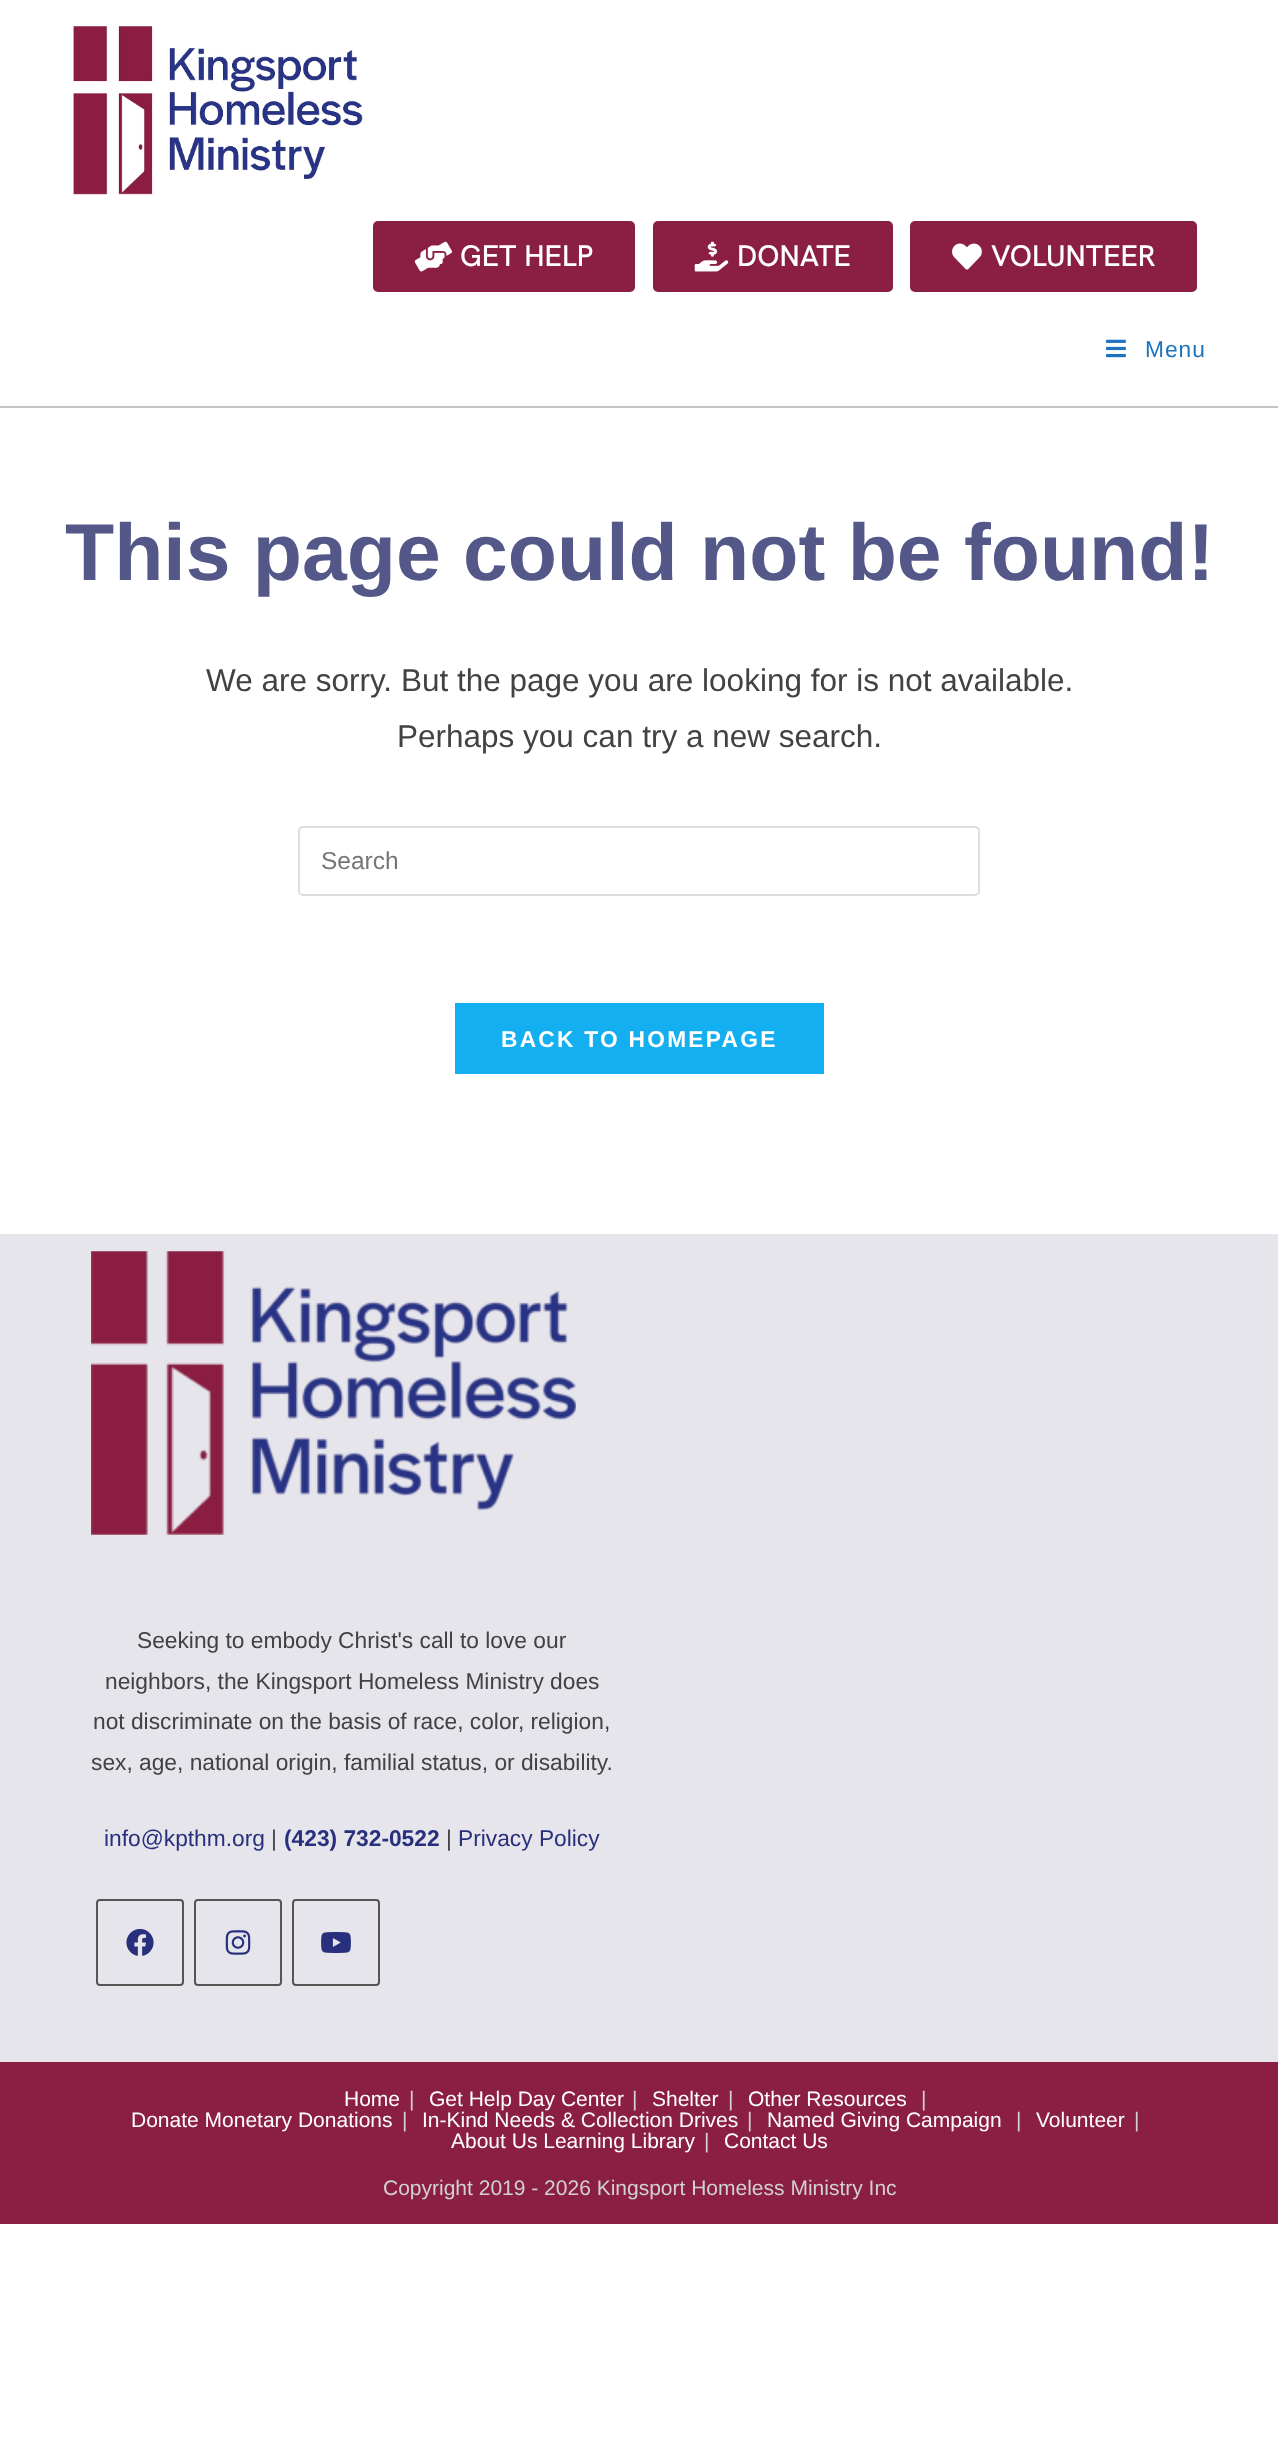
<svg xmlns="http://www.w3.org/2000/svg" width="1278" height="2444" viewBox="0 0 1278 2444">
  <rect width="100%" height="100%" fill="#ffffff"/>
  <rect x="0" y="406" width="1278" height="2" fill="#c4c4c4"/>
  <image x="73" y="26" width="290" height="169" href="img1.png"/>
  <rect x="373" y="221" width="262" height="71" rx="5" fill="#8b1f43"/>
  <image x="414" y="241" width="38" height="31" href="img2.png"/>
  <text x="460" y="266" font-family="Hanken Grotesk" font-size="29.75" font-weight="500" fill="#ffffff">GET HELP</text>
  <rect x="653" y="221" width="240" height="71" rx="5" fill="#8b1f43"/>
  <image x="694" y="241" width="35" height="31" href="img3.png"/>
  <text x="737" y="266" font-family="Hanken Grotesk" font-size="29.75" font-weight="500" fill="#ffffff">DONATE</text>
  <rect x="910" y="221" width="287" height="71" rx="5" fill="#8b1f43"/>
  <image x="952" y="243" width="30" height="27" href="img4.png"/>
  <text x="991" y="266" font-family="Hanken Grotesk" font-size="29.75" font-weight="500" fill="#ffffff">VOLUNTEER</text>
  <image x="1106" y="339" width="20" height="19" href="img5.png"/>
  <text x="1145" y="357" font-family="Liberation Sans" font-size="22.75" letter-spacing="1" fill="#1e73be">Menu</text>
  <text x="65" y="580" font-family="Liberation Sans" font-size="80.5" font-weight="bold" fill="#535888">This page could not be found!</text>
  <text x="206" y="691" font-family="Liberation Sans" font-size="31.5" fill="#424242">We are sorry. But the page you are looking for is not available.</text>
  <text x="397" y="747" font-family="Liberation Sans" font-size="31.5" fill="#424242">Perhaps you can try a new search.</text>
  <rect x="299" y="827" width="680" height="68" rx="4" fill="none" stroke="#dddddd" stroke-width="2"/>
  <text x="321" y="869" font-family="Liberation Sans" font-size="24.5" fill="#757575">Search</text>
  <rect x="455" y="1003" width="369" height="71" fill="#13aff0"/>
  <text x="501" y="1047" font-family="Liberation Sans" font-size="22.75" font-weight="bold" letter-spacing="2.25" fill="#ffffff">BACK TO HOMEPAGE</text>
  <rect x="0" y="1234" width="1278" height="828" fill="#e7e5ec"/>
  <image x="91" y="1251" width="485" height="284" href="img6.png"/>
  <text x="137" y="1648" font-family="Liberation Sans" font-size="22.75" fill="#424242">Seeking to embody Christ's call to love our</text>
  <text x="105" y="1689" font-family="Liberation Sans" font-size="22.75" fill="#424242">neighbors, the Kingsport Homeless Ministry does</text>
  <text x="93" y="1729" font-family="Liberation Sans" font-size="22.75" fill="#424242">not discriminate on the basis of race, color, religion,</text>
  <text x="91" y="1770" font-family="Liberation Sans" font-size="22.75" fill="#424242">sex, age, national origin, familial status, or disability.</text>
  <text x="104" y="1846" font-family="Liberation Sans" font-size="22.75" fill="#28307d">info@kpthm.org</text>
  <text x="271" y="1846" font-family="Liberation Sans" font-size="22.75" fill="#424242">|</text>
  <text x="284" y="1846" font-family="Liberation Sans" font-size="22.75" font-weight="bold" fill="#28307d">(423) 732-0522</text>
  <text x="446" y="1846" font-family="Liberation Sans" font-size="22.75" fill="#424242">|</text>
  <text x="458" y="1846" font-family="Liberation Sans" font-size="22.75" fill="#28307d">Privacy Policy</text>
  <rect x="97" y="1900" width="86" height="85" rx="3" fill="none" stroke="#555555" stroke-width="2"/>
  <image x="126" y="1928" width="28" height="28" href="img7.png"/>
  <rect x="195" y="1900" width="86" height="85" rx="3" fill="none" stroke="#555555" stroke-width="2"/>
  <image x="225" y="1930" width="26" height="25" href="img8.png"/>
  <rect x="293" y="1900" width="86" height="85" rx="3" fill="none" stroke="#555555" stroke-width="2"/>
  <image x="321" y="1932" width="30" height="21" href="img9.png"/>
  <rect x="0" y="2062" width="1278" height="162" fill="#8b1f43"/>
  <text x="344" y="2106" font-family="Liberation Sans" font-size="21" fill="#ffffff">Home</text>
  <text x="409" y="2106" font-family="Liberation Sans" font-size="21" fill="#d1d1d1">|</text>
  <text x="429" y="2106" font-family="Liberation Sans" font-size="21" fill="#ffffff">Get Help Day Center</text>
  <text x="632" y="2106" font-family="Liberation Sans" font-size="21" fill="#d1d1d1">|</text>
  <text x="652" y="2106" font-family="Liberation Sans" font-size="21" fill="#ffffff">Shelter</text>
  <text x="728" y="2106" font-family="Liberation Sans" font-size="21" fill="#d1d1d1">|</text>
  <text x="748" y="2106" font-family="Liberation Sans" font-size="21" fill="#ffffff">Other Resources</text>
  <text x="921" y="2106" font-family="Liberation Sans" font-size="21" fill="#d1d1d1">|</text>
  <text x="131" y="2127" font-family="Liberation Sans" font-size="21" fill="#ffffff">Donate Monetary Donations</text>
  <text x="402" y="2127" font-family="Liberation Sans" font-size="21" fill="#d1d1d1">|</text>
  <text x="422" y="2127" font-family="Liberation Sans" font-size="21" fill="#ffffff">In-Kind Needs &amp; Collection Drives</text>
  <text x="747" y="2127" font-family="Liberation Sans" font-size="21" fill="#d1d1d1">|</text>
  <text x="767" y="2127" font-family="Liberation Sans" font-size="21" fill="#ffffff">Named Giving Campaign</text>
  <text x="1016" y="2127" font-family="Liberation Sans" font-size="21" fill="#d1d1d1">|</text>
  <text x="1036" y="2127" font-family="Liberation Sans" font-size="21" fill="#ffffff">Volunteer</text>
  <text x="1134" y="2127" font-family="Liberation Sans" font-size="21" fill="#d1d1d1">|</text>
  <text x="451" y="2148" font-family="Liberation Sans" font-size="21" fill="#ffffff">About Us Learning Library</text>
  <text x="704" y="2148" font-family="Liberation Sans" font-size="21" fill="#d1d1d1">|</text>
  <text x="724" y="2148" font-family="Liberation Sans" font-size="21" fill="#ffffff">Contact Us</text>
  <text x="383" y="2195" font-family="Liberation Sans" font-size="21" fill="#d1d1d1">Copyright 2019 - 2026 Kingsport Homeless Ministry Inc</text>
</svg>
